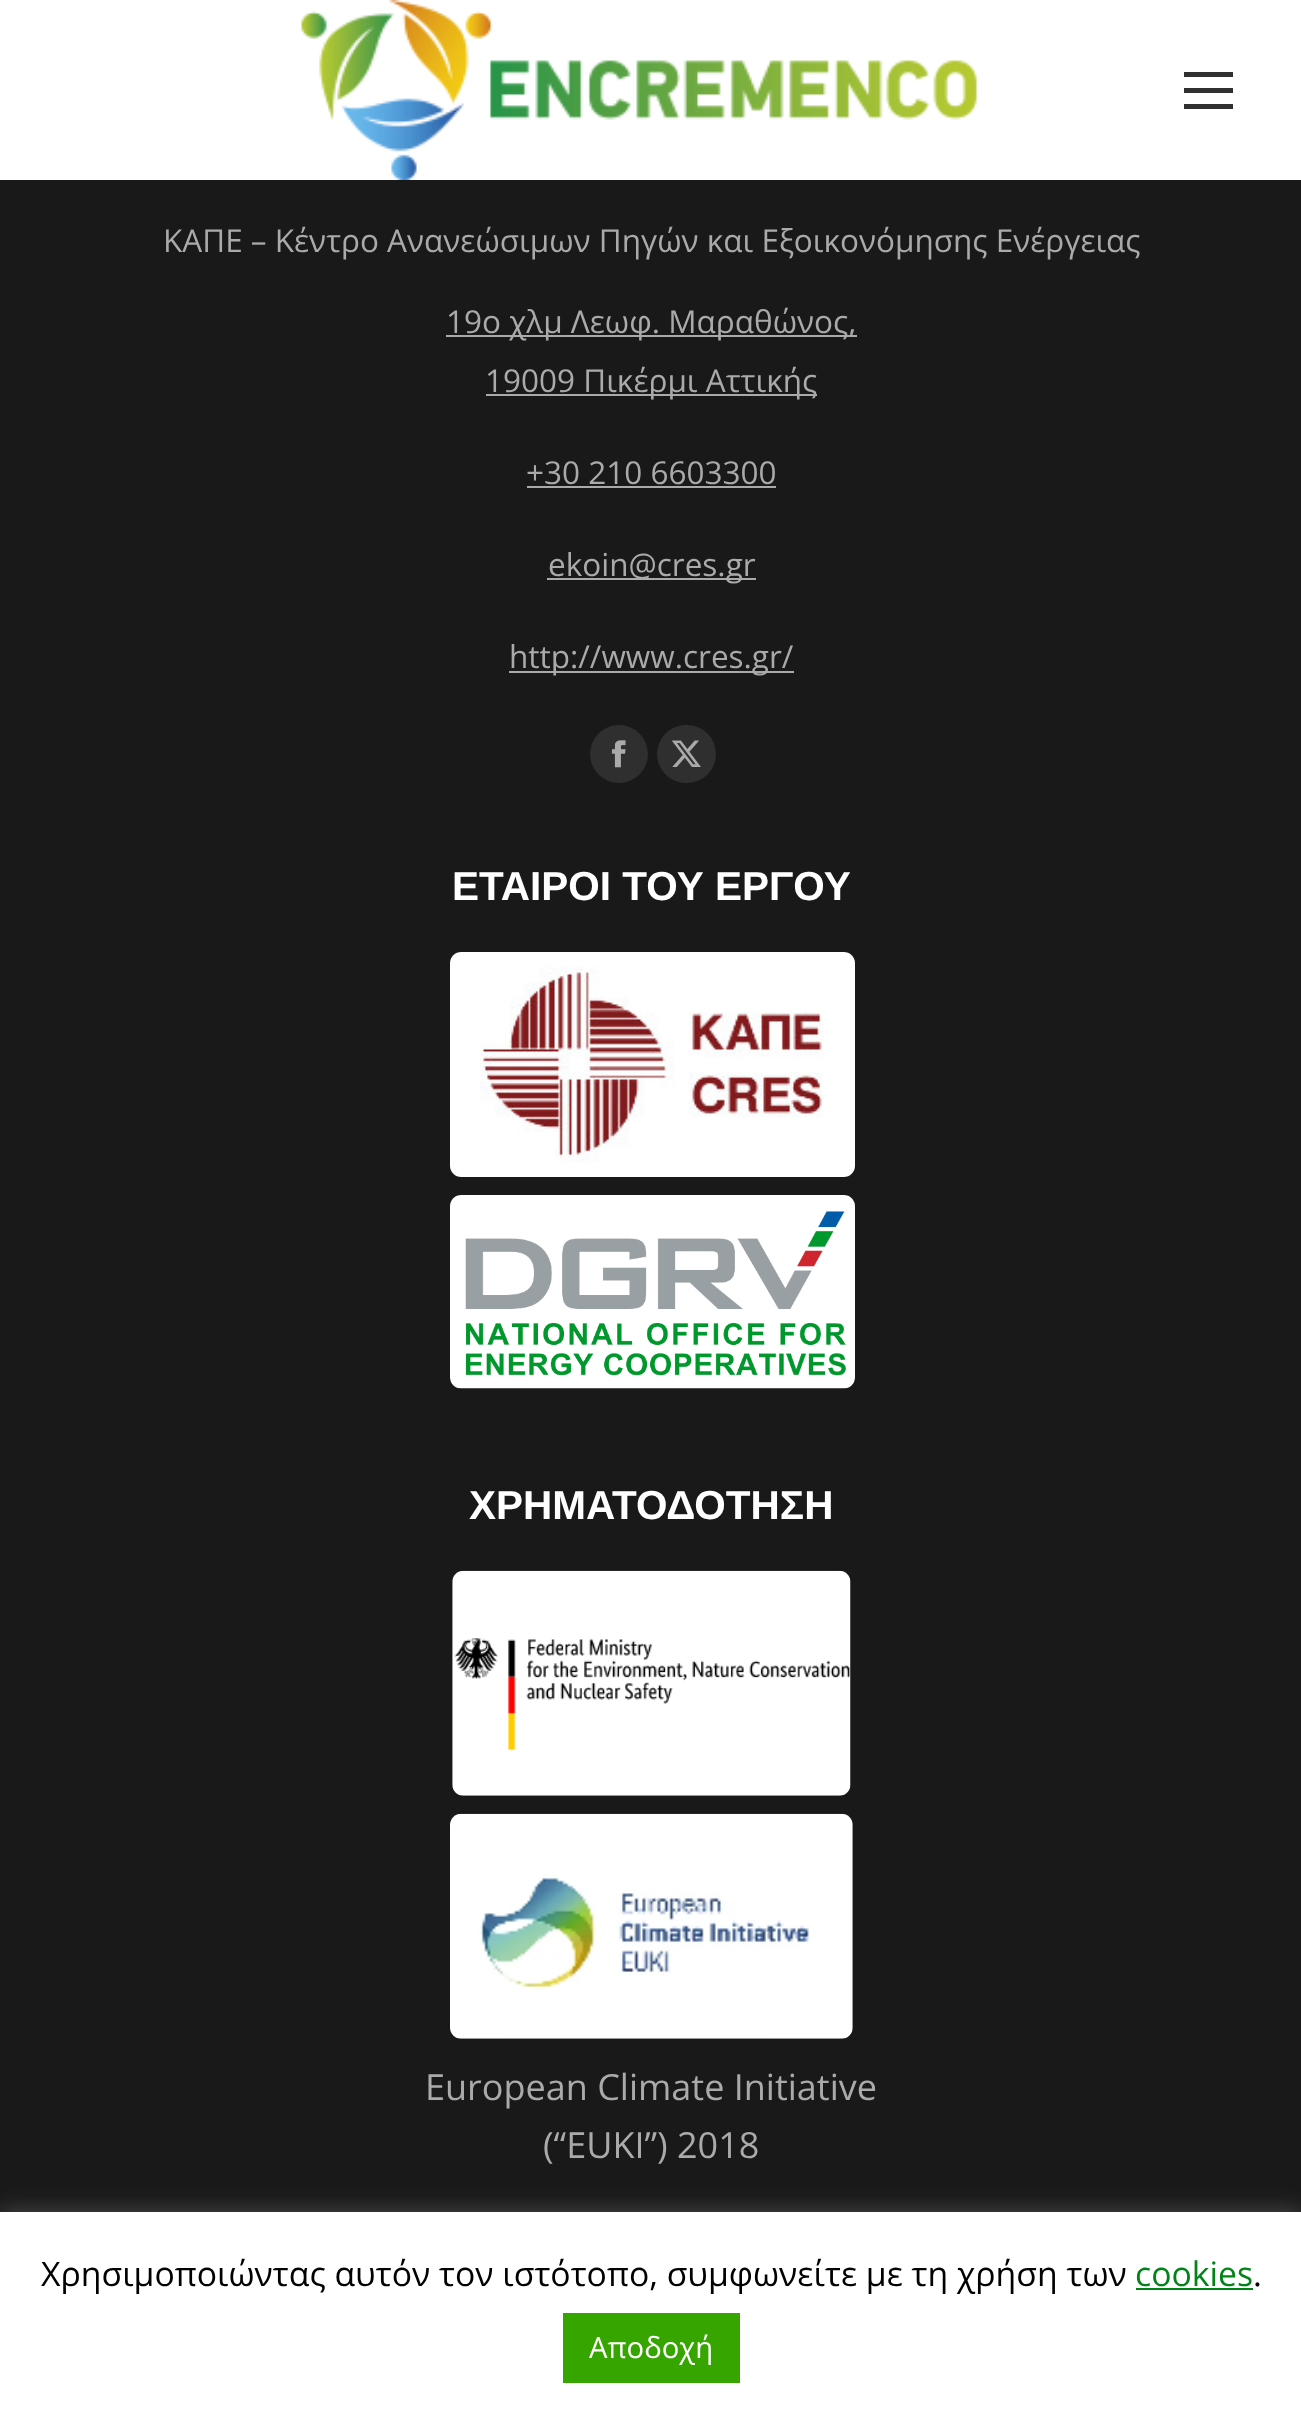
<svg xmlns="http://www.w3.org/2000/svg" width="1301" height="2420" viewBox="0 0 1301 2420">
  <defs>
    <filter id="blur1" x="-50%" y="-200%" width="200%" height="500%"><feGaussianBlur stdDeviation="11"/></filter>
  </defs>
  <rect width="100%" height="100%" fill="#191919"/>
  <rect x="0" y="0" width="1301" height="180" fill="#ffffff"/>
  <image x="301" y="0" width="677" height="180" href="img1.png"/>
  <rect x="1184" y="72" width="49" height="5" fill="#303030"/>
  <rect x="1184" y="88" width="49" height="5" fill="#303030"/>
  <rect x="1184" y="104" width="49" height="5" fill="#303030"/>
  <text x="163" y="252" font-family="Open Sans" font-size="31.5" fill="#aaaaaa">ΚΑΠΕ – Κέντρο Ανανεώσιμων Πηγών και Εξοικονόμησης Ενέργειας</text>
  <rect x="446" y="335" width="411" height="2" fill="#aaaaaa"/>
  <text x="446" y="333" font-family="Open Sans" font-size="31.5" fill="#aaaaaa">19ο χλμ Λεωφ. Μαραθώνος,</text>
  <rect x="486" y="394" width="331" height="2" fill="#aaaaaa"/>
  <text x="485" y="392" font-family="Open Sans" font-size="31.5" fill="#aaaaaa">19009 Πικέρμι Αττικής</text>
  <text x="526" y="484" font-family="Open Sans" font-size="31.5" fill="#aaaaaa">+30 210 6603300</text>
  <rect x="527" y="486" width="249" height="2" fill="#aaaaaa"/>
  <rect x="547" y="578" width="209" height="2" fill="#aaaaaa"/>
  <text x="548" y="576" font-family="Open Sans" font-size="31.5" fill="#aaaaaa">ekoin@cres.gr</text>
  <rect x="509" y="671" width="285" height="2" fill="#aaaaaa"/>
  <text x="509" y="668" font-family="Open Sans" font-size="31.5" fill="#aaaaaa">http://www.cres.gr/</text>
  <circle cx="619" cy="754" r="29" fill="#2f2f2f"/>
  <image x="611" y="740" width="15" height="28" href="img2.png"/>
  <rect x="657" y="725" width="59" height="58" rx="29" fill="#2f2f2f"/>
  <image x="671" y="740" width="30" height="27" href="img3.png"/>
  <text x="452" y="900" font-family="Liberation Sans" font-size="40.5" font-weight="bold" fill="#ffffff">ΕΤΑΙΡΟΙ ΤΟΥ ΕΡΓΟΥ</text>
  <image x="450" y="952" width="405" height="225" href="img4.png"/>
  <image x="450" y="1195" width="405" height="194" href="img5.png"/>
  <text x="469" y="1519" font-family="Liberation Sans" font-size="40.5" font-weight="bold" fill="#ffffff">ΧΡΗΜΑΤΟΔΟΤΗΣΗ</text>
  <image x="452" y="1570" width="399" height="226" href="img6.png"/>
  <image x="450" y="1813" width="403" height="226" href="img7.png"/>
  <text x="425" y="2100" font-family="Open Sans" font-size="36" fill="#aaaaaa">European Climate Initiative</text>
  <text x="543" y="2158" font-family="Open Sans" font-size="36" fill="#aaaaaa">(“EUKI”) 2018</text>
  <rect x="0" y="2210" width="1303" height="209" fill="#acabab" fill-opacity="0.3" filter="url(#blur1)"/>
  <rect x="0" y="2212" width="1301" height="208" fill="#ffffff"/>
  <text x="41" y="2286" font-family="Open Sans" font-size="33.75" fill="#000000">Χρησιμοποιώντας αυτόν τον ιστότοπο, συμφωνείτε με τη χρήση των</text>
  <text x="1135" y="2286" font-family="Open Sans" font-size="33.75" fill="#008418">cookies</text>
  <rect x="1136" y="2288" width="117" height="2" fill="#008418"/>
  <text x="1253" y="2286" font-family="Open Sans" font-size="33.75" fill="#000000">.</text>
  <rect x="563" y="2313" width="177" height="70" fill="#37a500"/>
  <text x="589" y="2358" font-family="Open Sans" font-size="29.25" fill="#ffffff">Αποδοχή</text>
</svg>
